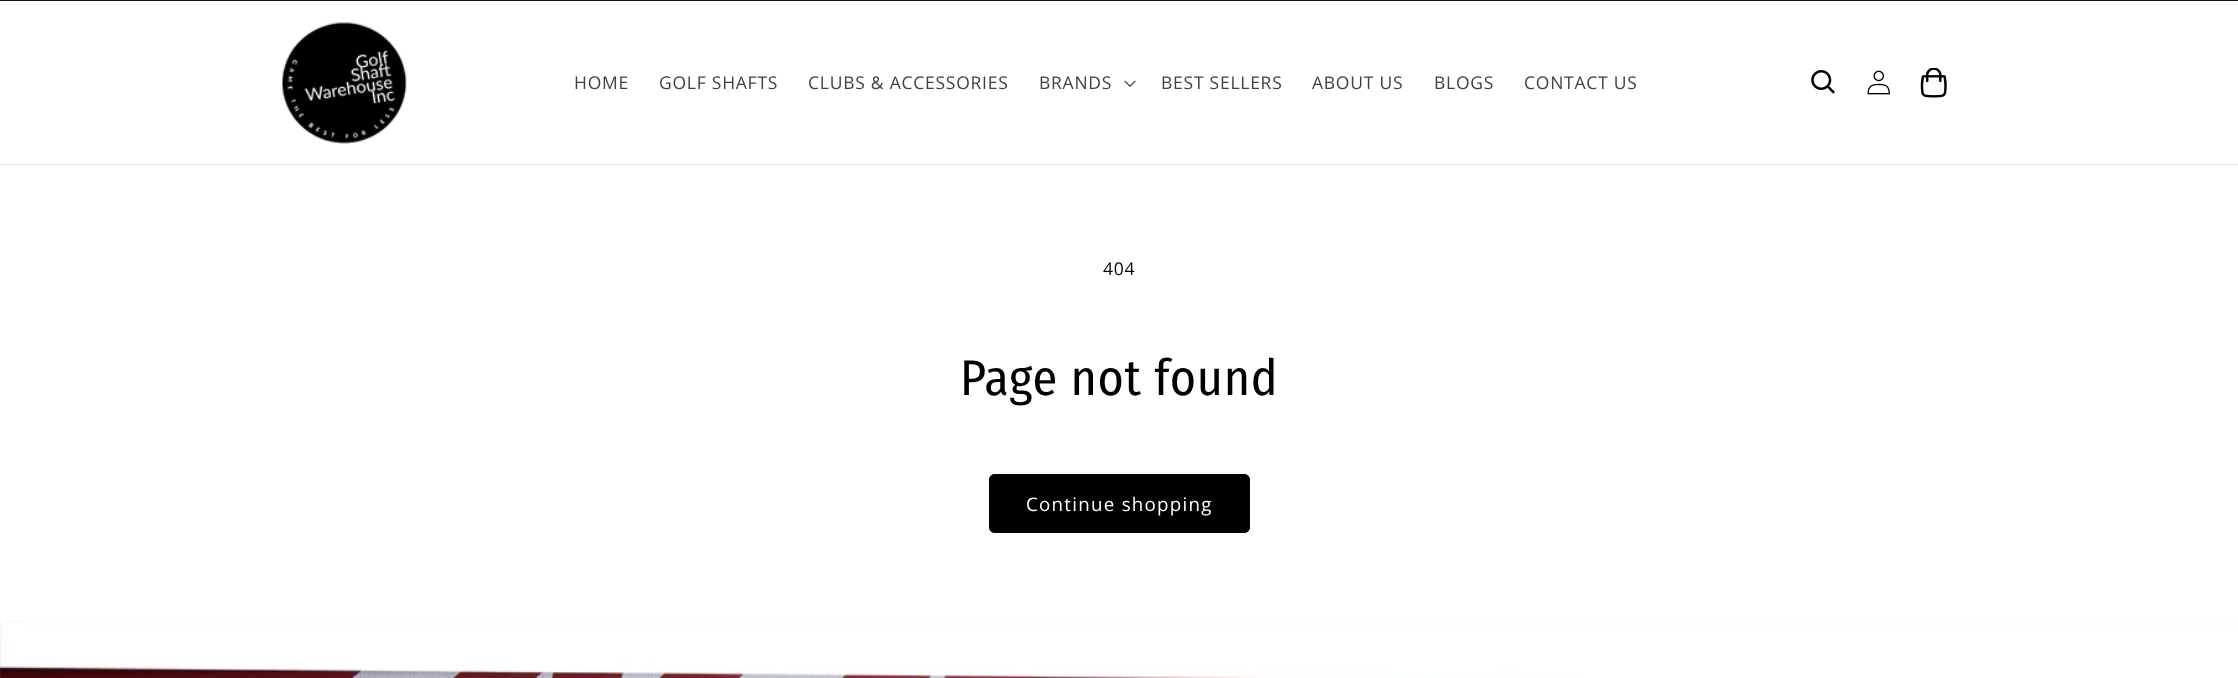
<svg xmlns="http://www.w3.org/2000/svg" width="2238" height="678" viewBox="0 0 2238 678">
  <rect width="100%" height="100%" fill="#ffffff"/>
  <rect x="0" y="0" width="2238" height="1" fill="#141414"/>
  <rect x="0" y="164" width="2238" height="1" fill="#ebebeb"/>
  <image x="282" y="22" width="125" height="122" href="img1.png"/>
  <text x="574" y="89" font-family="Open Sans" font-size="17.5" letter-spacing="0.75" fill="#404040">HOME</text>
  <text x="659" y="89" font-family="Open Sans" font-size="17.5" letter-spacing="0.75" fill="#404040">GOLF SHAFTS</text>
  <text x="808" y="89" font-family="Open Sans" font-size="17.5" letter-spacing="0.75" fill="#404040">CLUBS &amp; ACCESSORIES</text>
  <text x="1039" y="89" font-family="Open Sans" font-size="17.5" letter-spacing="0.75" fill="#404040">BRANDS</text>
  <image x="1124" y="80" width="12" height="7" href="img2.png"/>
  <text x="1161" y="89" font-family="Open Sans" font-size="17.5" letter-spacing="0.75" fill="#404040">BEST SELLERS</text>
  <text x="1312" y="89" font-family="Open Sans" font-size="17.5" letter-spacing="0.75" fill="#404040">ABOUT US</text>
  <text x="1434" y="89" font-family="Open Sans" font-size="17.5" letter-spacing="0.75" fill="#404040">BLOGS</text>
  <text x="1524" y="89" font-family="Open Sans" font-size="17.5" letter-spacing="0.75" fill="#404040">CONTACT US</text>
  <image x="1811" y="70" width="24" height="24" href="img3.png"/>
  <image x="1867" y="70" width="23" height="25" href="img4.png"/>
  <image x="1920" y="68" width="27" height="30" href="img5.png"/>
  <text x="1103" y="275" font-family="Open Sans" font-size="17.5" letter-spacing="0.75" fill="#000000">404</text>
  <text x="960" y="395" font-family="Fira Sans Condensed" font-size="50" letter-spacing="0.75" fill="#000000">Page not found</text>
  <rect x="989" y="474" width="261" height="59" rx="6" fill="#000000"/>
  <rect x="989.5" y="474.5" width="260" height="58" rx="5.5" fill="none" stroke="#000000"/>
  <text x="1026" y="511" font-family="Open Sans" font-size="18.75" letter-spacing="1.25" fill="#ffffff">Continue shopping</text>
  <image x="0" y="620" width="2238" height="58" href="img6.png"/>
</svg>
